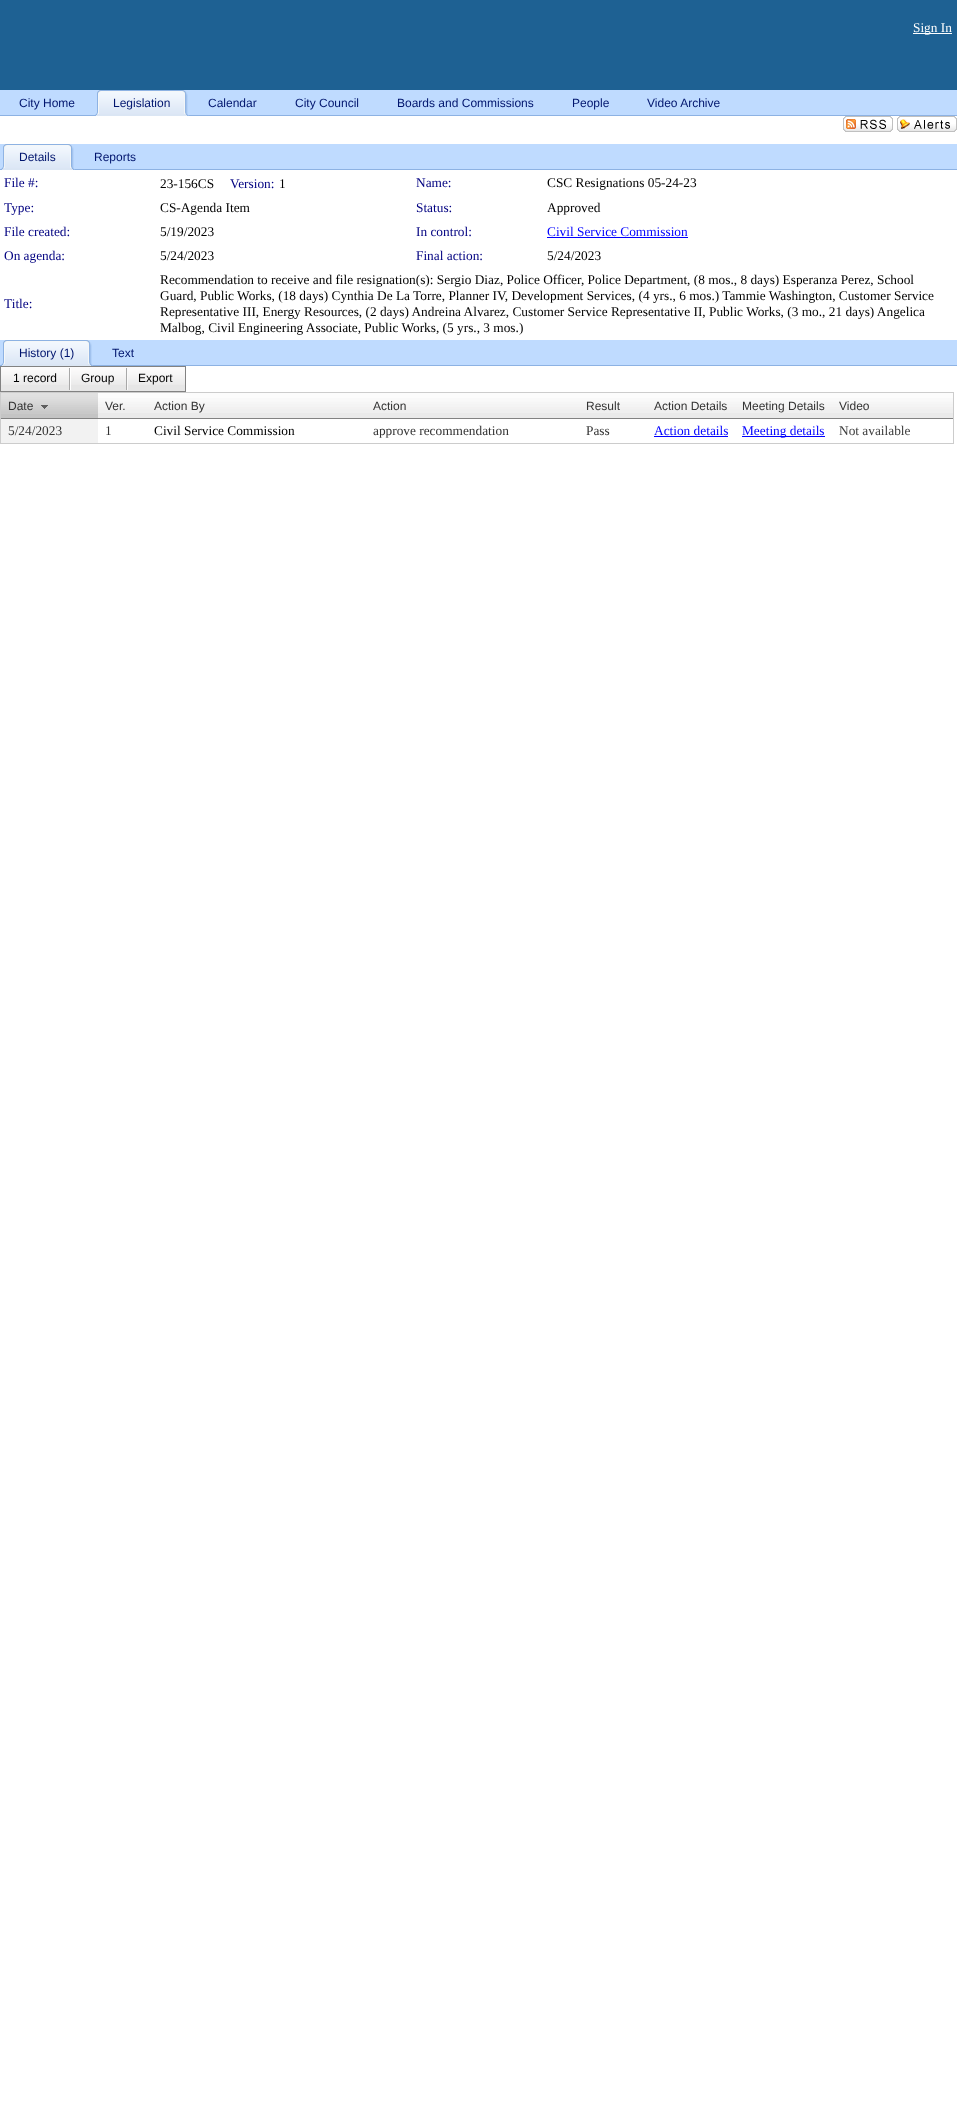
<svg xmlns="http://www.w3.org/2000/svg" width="957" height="2119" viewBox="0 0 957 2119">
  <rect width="100%" height="100%" fill="#ffffff"/>
  <rect x="0" y="0" width="957" height="90" fill="#1e6193"/>
  <rect x="913" y="33" width="39" height="1" fill="#ffffff"/>
  <text x="913" y="32" font-family="Liberation Serif" font-size="13.33" fill="#ffffff">Sign In</text>
  <rect x="0" y="90" width="957" height="25" fill="#bfdbff"/>
  <rect x="0" y="115" width="957" height="1" fill="#8db2e3"/>
  <text x="19" y="107" font-family="Liberation Sans" font-size="12" fill="#00156e">City Home</text>
  <image x="95" y="90" width="8" height="26" href="img1.png"/>
  <image x="103" y="90" width="86" height="26" href="img2.png"/>
  <text x="113" y="107" font-family="Liberation Sans" font-size="12" fill="#00156e">Legislation</text>
  <text x="208" y="107" font-family="Liberation Sans" font-size="12" fill="#00156e">Calendar</text>
  <text x="295" y="107" font-family="Liberation Sans" font-size="12" fill="#00156e">City Council</text>
  <text x="397" y="107" font-family="Liberation Sans" font-size="12" fill="#00156e">Boards and Commissions</text>
  <text x="572" y="107" font-family="Liberation Sans" font-size="12" fill="#00156e">People</text>
  <text x="647" y="107" font-family="Liberation Sans" font-size="12" fill="#00156e">Video Archive</text>
  <image x="843" y="116" width="50" height="16" href="img3.png"/>
  <image x="897" y="116" width="60" height="16" href="img4.png"/>
  <rect x="0" y="144" width="957" height="25" fill="#bfdbff"/>
  <rect x="0" y="169" width="957" height="1" fill="#8db2e3"/>
  <image x="1" y="144" width="8" height="26" href="img5.png"/>
  <image x="9" y="144" width="66" height="26" href="img6.png"/>
  <text x="19" y="161" font-family="Liberation Sans" font-size="12" fill="#00156e">Details</text>
  <text x="94" y="161" font-family="Liberation Sans" font-size="12" fill="#00156e">Reports</text>
  <text x="4" y="187" font-family="Liberation Serif" font-size="13.33" fill="#000080">File #:</text>
  <text x="160" y="188" font-family="Liberation Serif" font-size="13.33" fill="#000000">23-156CS</text>
  <text x="230" y="188" font-family="Liberation Serif" font-size="13.33" fill="#000080">Version:</text>
  <text x="279" y="188" font-family="Liberation Serif" font-size="13.33" fill="#000000">1</text>
  <text x="416" y="187" font-family="Liberation Serif" font-size="13.33" fill="#000080">Name:</text>
  <text x="547" y="187" font-family="Liberation Serif" font-size="13.33" fill="#000000">CSC Resignations 05-24-23</text>
  <text x="4" y="212" font-family="Liberation Serif" font-size="13.33" fill="#000080">Type:</text>
  <text x="160" y="212" font-family="Liberation Serif" font-size="13.33" fill="#000000">CS-Agenda Item</text>
  <text x="416" y="212" font-family="Liberation Serif" font-size="13.33" fill="#000080">Status:</text>
  <text x="547" y="212" font-family="Liberation Serif" font-size="13.33" fill="#000000">Approved</text>
  <text x="4" y="236" font-family="Liberation Serif" font-size="13.33" fill="#000080">File created:</text>
  <text x="160" y="236" font-family="Liberation Serif" font-size="13.33" fill="#000000">5/19/2023</text>
  <text x="416" y="236" font-family="Liberation Serif" font-size="13.33" fill="#000080">In control:</text>
  <text x="547" y="236" font-family="Liberation Serif" font-size="13.33" fill="#0000ff">Civil Service Commission</text>
  <rect x="547" y="237" width="141" height="1" fill="#0000ff"/>
  <text x="4" y="260" font-family="Liberation Serif" font-size="13.33" fill="#000080">On agenda:</text>
  <text x="160" y="260" font-family="Liberation Serif" font-size="13.33" fill="#000000">5/24/2023</text>
  <text x="416" y="260" font-family="Liberation Serif" font-size="13.33" fill="#000080">Final action:</text>
  <text x="547" y="260" font-family="Liberation Serif" font-size="13.33" fill="#000000">5/24/2023</text>
  <text x="4" y="308" font-family="Liberation Serif" font-size="13.33" fill="#000080">Title:</text>
  <text x="160" y="284" font-family="Liberation Serif" font-size="13.33" fill="#000000">Recommendation to receive and file resignation(s): Sergio Diaz, Police Officer, Police Department, (8 mos., 8 days) Esperanza Perez, School</text>
  <text x="160" y="300" font-family="Liberation Serif" font-size="13.33" fill="#000000">Guard, Public Works, (18 days) Cynthia De La Torre, Planner IV, Development Services, (4 yrs., 6 mos.) Tammie Washington, Customer Service</text>
  <text x="160" y="316" font-family="Liberation Serif" font-size="13.33" fill="#000000">Representative III, Energy Resources, (2 days) Andreina Alvarez, Customer Service Representative II, Public Works, (3 mo., 21 days) Angelica</text>
  <text x="160" y="332" font-family="Liberation Serif" font-size="13.33" fill="#000000">Malbog, Civil Engineering Associate, Public Works, (5 yrs., 3 mos.)</text>
  <rect x="0" y="340" width="957" height="25" fill="#bfdbff"/>
  <rect x="0" y="365" width="957" height="1" fill="#8db2e3"/>
  <image x="1" y="340" width="8" height="26" href="img1.png"/>
  <image x="9" y="340" width="84" height="26" href="img7.png"/>
  <text x="19" y="357" font-family="Liberation Sans" font-size="12" fill="#00156e">History (1)</text>
  <text x="112" y="357" font-family="Liberation Sans" font-size="12" fill="#00156e">Text</text>
  <rect x="1" y="385" width="184" height="6" fill="#e6e6e6"/>
  <image x="1" y="367" width="184" height="18" href="img8.png"/>
  <rect x="0.5" y="366.5" width="185" height="25" fill="none" stroke="#828282"/>
  <text x="13" y="382" font-family="Liberation Sans" font-size="12" fill="#000000">1 record</text>
  <image x="69" y="368" width="2" height="22" href="img9.png"/>
  <text x="81" y="382" font-family="Liberation Sans" font-size="12" fill="#000000">Group</text>
  <image x="126" y="368" width="2" height="22" href="img10.png"/>
  <text x="138" y="382" font-family="Liberation Sans" font-size="12" fill="#000000">Export</text>
  <rect x="0.5" y="392.5" width="953" height="51" fill="none" stroke="#cccccc"/>
  <rect x="1" y="414" width="97" height="4" fill="#c4c4c4"/>
  <image x="1" y="393" width="97" height="21" href="img11.png"/>
  <rect x="1" y="418" width="952" height="1" fill="#828282"/>
  <text x="8" y="410" font-family="Liberation Sans" font-size="12" fill="#333333">Date</text>
  <image x="41" y="405" width="7" height="4" href="img12.png"/>
  <rect x="98" y="413" width="855" height="5" fill="#eaeaea"/>
  <image x="98" y="393" width="49" height="20" href="img13.png"/>
  <text x="105" y="410" font-family="Liberation Sans" font-size="12" fill="#333333">Ver.</text>
  <image x="147" y="393" width="219" height="20" href="img14.png"/>
  <text x="154" y="410" font-family="Liberation Sans" font-size="12" fill="#333333">Action By</text>
  <image x="366" y="393" width="213" height="20" href="img15.png"/>
  <text x="373" y="410" font-family="Liberation Sans" font-size="12" fill="#333333">Action</text>
  <image x="579" y="393" width="68" height="20" href="img16.png"/>
  <text x="586" y="410" font-family="Liberation Sans" font-size="12" fill="#333333">Result</text>
  <image x="647" y="393" width="88" height="20" href="img17.png"/>
  <text x="654" y="410" font-family="Liberation Sans" font-size="12" fill="#333333">Action Details</text>
  <image x="735" y="393" width="97" height="20" href="img18.png"/>
  <text x="742" y="410" font-family="Liberation Sans" font-size="12" fill="#333333">Meeting Details</text>
  <image x="832" y="393" width="121" height="20" href="img19.png"/>
  <text x="839" y="410" font-family="Liberation Sans" font-size="12" fill="#333333">Video</text>
  <rect x="1" y="419" width="97" height="24" fill="#f2f2f2"/>
  <text x="8" y="435" font-family="Liberation Serif" font-size="13.33" fill="#333333">5/24/2023</text>
  <text x="105" y="435" font-family="Liberation Serif" font-size="13.33" fill="#333333">1</text>
  <text x="154" y="435" font-family="Liberation Serif" font-size="13.33" fill="#000000">Civil Service Commission</text>
  <text x="373" y="435" font-family="Liberation Serif" font-size="13.33" fill="#333333">approve recommendation</text>
  <text x="586" y="435" font-family="Liberation Serif" font-size="13.33" fill="#333333">Pass</text>
  <text x="654" y="435" font-family="Liberation Serif" font-size="13.33" fill="#0000ff">Action details</text>
  <rect x="654" y="436" width="74" height="1" fill="#0000ff"/>
  <rect x="742" y="436" width="83" height="1" fill="#0000ff"/>
  <text x="742" y="435" font-family="Liberation Serif" font-size="13.33" fill="#0000ff">Meeting details</text>
  <text x="839" y="435" font-family="Liberation Serif" font-size="13.33" fill="#3d3d3d">Not available</text>
</svg>
